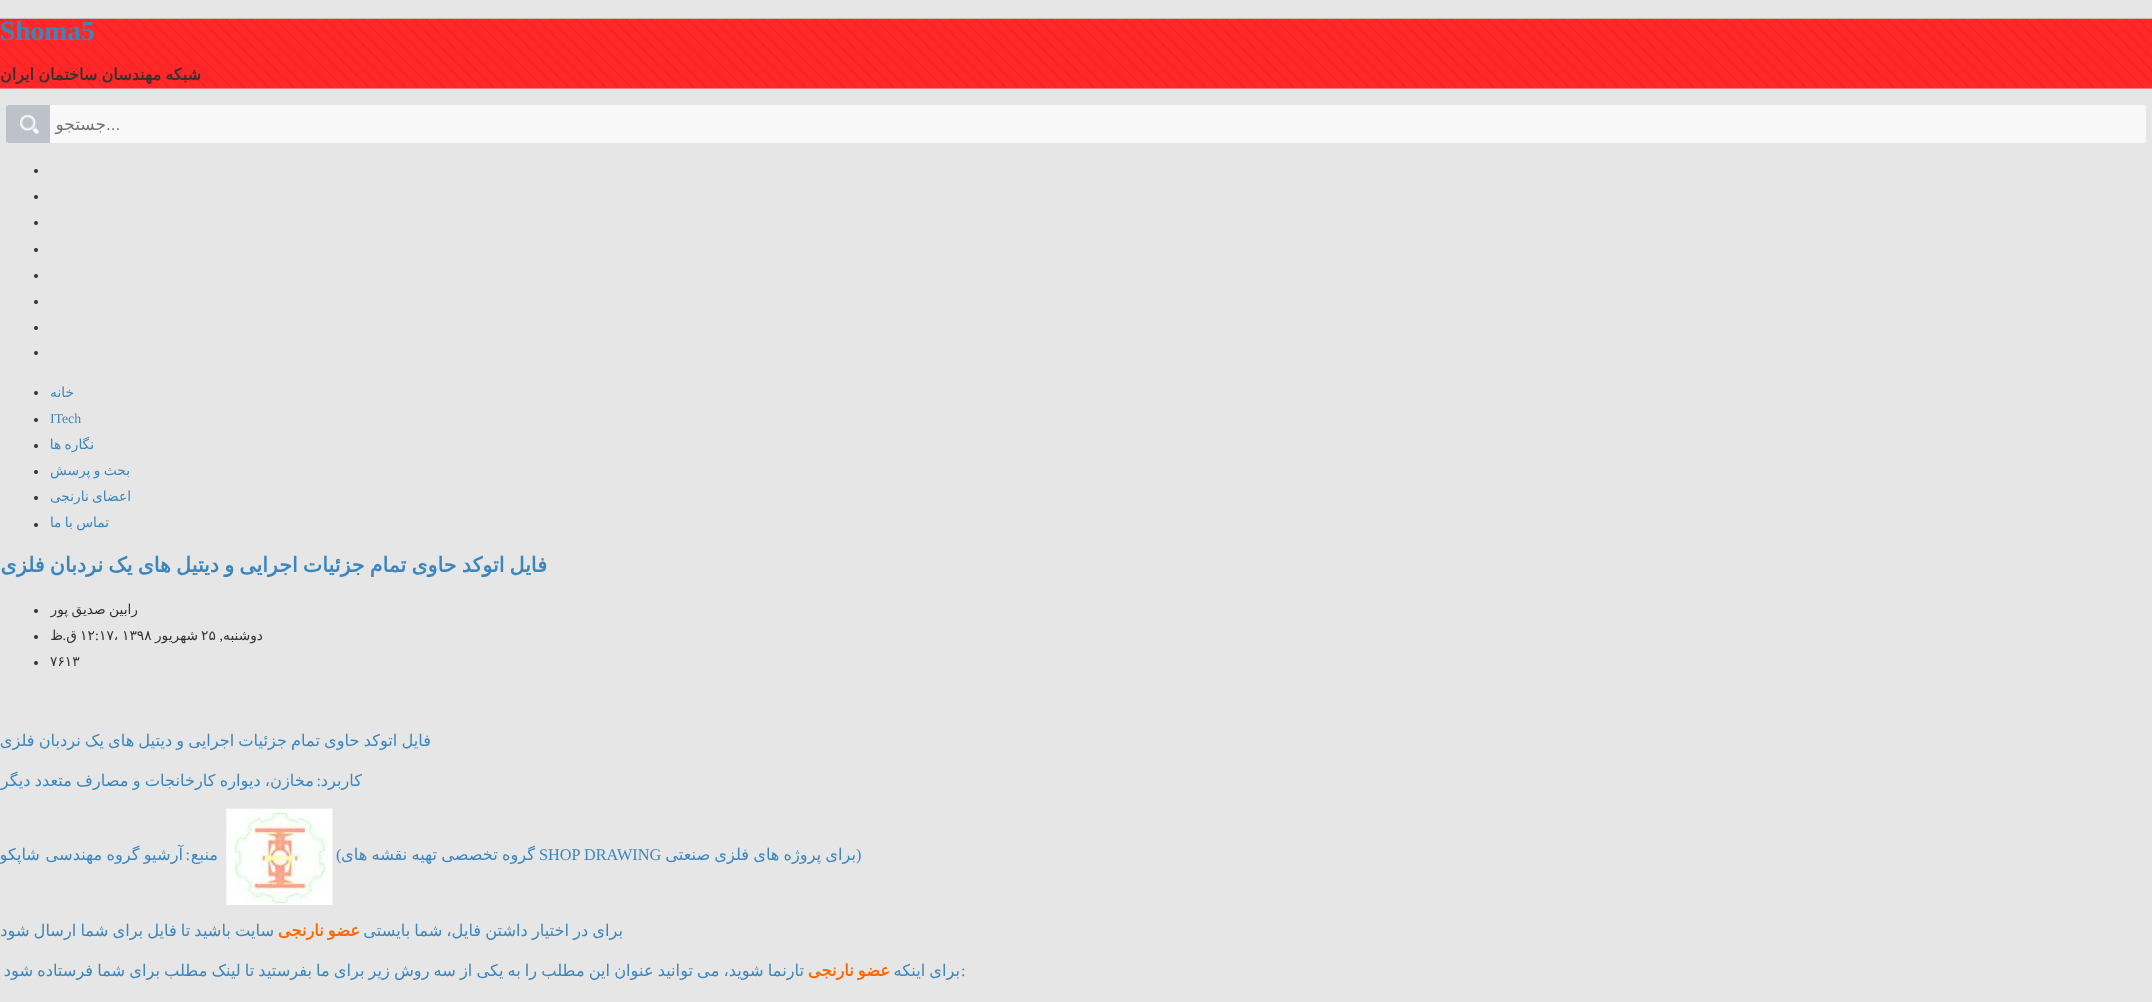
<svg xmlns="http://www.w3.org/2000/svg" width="2152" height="1002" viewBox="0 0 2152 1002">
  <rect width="100%" height="100%" fill="#e6e6e6"/>
  <image x="0" y="18" width="2152" height="71" href="img1.png"/>
  <text x="0" y="40" font-family="Liberation Serif" font-size="27.5" font-weight="bold" fill="#3b86bd">Shoma5</text>
  <text x="201" y="80" word-spacing="-1" font-family="DejaVu Sans" font-size="16.1" font-weight="bold" direction="rtl" fill="#333333">شبکه مهندسان ساختمان ایران</text>
  <rect x="6" y="105" width="2140" height="38" rx="2.5" fill="#f8f8f8"/>
  <text x="106" y="130" font-family="Liberation Sans" font-size="17" fill="#757575">...</text>
  <text x="106" y="130" font-family="DejaVu Sans" font-size="17" direction="rtl" fill="#757575">جستجو</text>
  <path d="M8.5 105H50V143H8.5C7 143 6 142 6 140.5V107.5C6 106 7 105 8.5 105Z" fill="#bdc2ca"/>
  <image x="20" y="115" width="19" height="19" href="img2.png"/>
  <circle cx="36" cy="171" r="2" fill="#333333"/>
  <circle cx="36" cy="197" r="2" fill="#333333"/>
  <circle cx="36" cy="223" r="2" fill="#333333"/>
  <circle cx="36" cy="250" r="2" fill="#333333"/>
  <circle cx="36" cy="276" r="2" fill="#333333"/>
  <circle cx="36" cy="302" r="2" fill="#333333"/>
  <circle cx="36" cy="328" r="2" fill="#333333"/>
  <circle cx="36" cy="353" r="2" fill="#333333"/>
  <text x="74" y="397" font-family="DejaVu Sans" font-size="13.75" direction="rtl" fill="#3b86bd">خانه</text>
  <circle cx="36" cy="393" r="2" fill="#333333"/>
  <text x="50" y="423" font-family="Liberation Serif" font-size="13.75" fill="#3b86bd">ITech</text>
  <circle cx="36" cy="420" r="2" fill="#333333"/>
  <text x="94" y="449" word-spacing="-1" font-family="DejaVu Sans" font-size="13.75" direction="rtl" fill="#3b86bd">نگاره ها</text>
  <circle cx="36" cy="446" r="2" fill="#333333"/>
  <text x="130" y="475" word-spacing="-1" font-family="DejaVu Sans" font-size="13.75" direction="rtl" fill="#3b86bd">بحث و پرسش</text>
  <circle cx="36" cy="472" r="2" fill="#333333"/>
  <text x="131" y="501" word-spacing="-1" font-family="DejaVu Sans" font-size="13.75" direction="rtl" fill="#3b86bd">اعضای نارنجی</text>
  <circle cx="36" cy="498" r="2" fill="#333333"/>
  <text x="109" y="527" word-spacing="-1" font-family="DejaVu Sans" font-size="13.75" direction="rtl" fill="#3b86bd">تماس با ما</text>
  <circle cx="36" cy="525" r="2" fill="#333333"/>
  <text x="547" y="572" word-spacing="-1.4" font-family="DejaVu Sans" font-size="20.6" font-weight="bold" direction="rtl" fill="#3b86bd">فایل اتوکد حاوی تمام جزئیات اجرایی و دیتیل های یک نردبان فلزی</text>
  <text x="138" y="614" word-spacing="-1" font-family="DejaVu Sans" font-size="13.75" direction="rtl" fill="#333333">رابین صدیق پور</text>
  <circle cx="36" cy="611" r="2" fill="#333333"/>
  <text x="263" y="640" font-family="DejaVu Sans" font-size="13.75" direction="rtl" fill="#333333">دوشنبه</text>
  <text x="223" y="640" font-family="Liberation Serif" font-size="13.75" direction="rtl" fill="#333333">,</text>
  <text x="201" y="640" font-family="DejaVu Sans" font-size="13.75" fill="#333333">۲۵</text>
  <text x="198" y="640" font-family="DejaVu Sans" font-size="13.75" direction="rtl" fill="#333333">شهریور</text>
  <text x="122" y="640" font-family="DejaVu Sans" font-size="13.75" fill="#333333">۱۳۹۸</text>
  <text x="99" y="640" font-family="DejaVu Sans" font-size="13.75" fill="#333333">۱۷،</text>
  <text x="95" y="640" font-family="Liberation Serif" font-size="13.75" fill="#333333">:</text>
  <text x="80" y="640" font-family="DejaVu Sans" font-size="13.75" fill="#333333">۱۲</text>
  <text x="77" y="640" font-family="DejaVu Sans" font-size="13.75" direction="rtl" fill="#333333">ق</text>
  <text x="66" y="640" font-family="Liberation Serif" font-size="13.75" direction="rtl" fill="#333333">.</text>
  <text x="63" y="640" font-family="DejaVu Sans" font-size="13.75" direction="rtl" fill="#333333">ظ</text>
  <circle cx="36" cy="637" r="2" fill="#333333"/>
  <text x="50" y="666" font-family="DejaVu Sans" font-size="13.75" fill="#333333">۷۶۱۳</text>
  <circle cx="36" cy="663" r="2" fill="#333333"/>
  <text x="431" y="746" word-spacing="-1.1" font-family="DejaVu Sans" font-size="16.25" direction="rtl" fill="#3b86bd">فایل اتوکد حاوی تمام جزئیات اجرایی و دیتیل های یک نردبان فلزی</text>
  <text x="362" y="786" font-family="DejaVu Sans" font-size="16.25" direction="rtl" fill="#3b86bd">کاربرد</text>
  <text x="314" y="786" word-spacing="-1" font-family="DejaVu Sans" font-size="16.25" direction="rtl" fill="#3b86bd">مخازن، دیواره کارخانجات و مصارف متعدد دیگر</text>
  <text x="321" y="786" font-family="Liberation Serif" font-size="16.25" direction="rtl" fill="#3b86bd">:</text>
  <text x="856" y="860" word-spacing="-1.1" font-family="DejaVu Sans" font-size="16.25" direction="rtl" fill="#3b86bd">برای پروژه های فلزی صنعتی</text>
  <text x="535" y="860" word-spacing="-1.1" font-family="DejaVu Sans" font-size="16.25" direction="rtl" fill="#3b86bd">گروه تخصصی تهیه نقشه های</text>
  <text x="336" y="860" font-family="Liberation Serif" font-size="16.25" fill="#3b86bd">(</text>
  <image x="226" y="808" width="107" height="97" href="img3.png"/>
  <text x="183" y="860" word-spacing="-1" font-family="DejaVu Sans" font-size="16.25" direction="rtl" fill="#3b86bd">آرشیو گروه مهندسی</text>
  <text x="40" y="860" font-family="DejaVu Sans" font-size="16.25" direction="rtl" fill="#3b86bd">شاپکو</text>
  <text x="856" y="860" font-family="Liberation Serif" font-size="16.25" fill="#3b86bd">)</text>
  <text x="539" y="860" font-family="Liberation Serif" font-size="16.25" fill="#3b86bd">SHOP DRAWING</text>
  <text x="218" y="860" font-family="DejaVu Sans" font-size="16.25" direction="rtl" fill="#3b86bd">منبع</text>
  <text x="190" y="860" font-family="Liberation Serif" font-size="16.25" direction="rtl" fill="#3b86bd">:</text>
  <text x="623" y="936" word-spacing="-1.1" font-family="DejaVu Sans" font-size="16.25" direction="rtl" fill="#3b86bd">برای در اختیار داشتن فایل، شما بایستی</text>
  <text x="360" y="936" word-spacing="-1.1" font-family="DejaVu Sans" font-size="16.25" font-weight="bold" direction="rtl" fill="#ff6600">عضو نارنجی</text>
  <text x="274" y="936" word-spacing="-1.1" font-family="DejaVu Sans" font-size="16.25" direction="rtl" fill="#3b86bd">سایت باشید تا فایل برای شما ارسال شود</text>
  <text x="961" y="976" font-family="Liberation Serif" font-size="16.25" fill="#3b86bd">:</text>
  <text x="960" y="976" word-spacing="-1.1" font-family="DejaVu Sans" font-size="16.25" direction="rtl" fill="#3b86bd">برای اینکه</text>
  <text x="890" y="976" word-spacing="-1.1" font-family="DejaVu Sans" font-size="16.25" font-weight="bold" direction="rtl" fill="#ff6600">عضو نارنجی</text>
  <text x="804" y="976" word-spacing="-1.1" font-family="DejaVu Sans" font-size="16.25" direction="rtl" fill="#3b86bd">تارنما شوید، می توانید عنوان این مطلب را به یکی از سه روش زیر برای ما بفرستید تا لینک مطلب برای شما فرستاده شود</text>
</svg>
